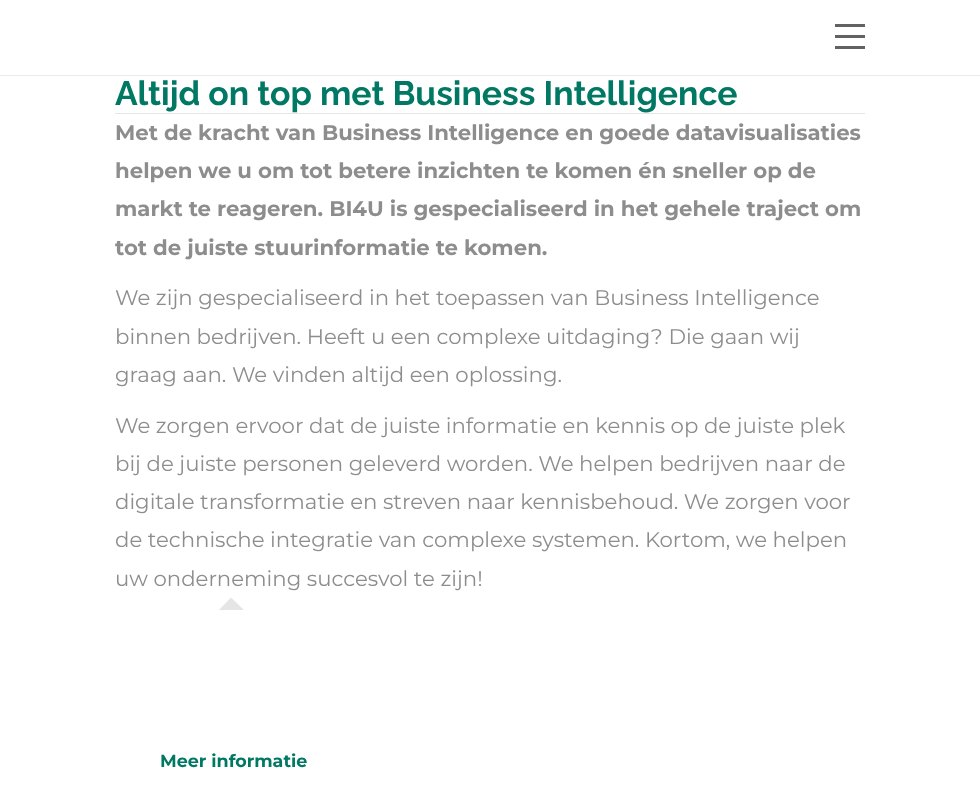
<svg xmlns="http://www.w3.org/2000/svg" width="980" height="787" viewBox="0 0 980 787">
  <rect width="100%" height="100%" fill="#ffffff"/>
  <rect x="0" y="75" width="980" height="1" fill="#ebebeb"/>
  <rect x="835" y="35" width="30" height="3" fill="#626262"/>
  <rect x="835" y="24" width="30" height="3" fill="#626262"/>
  <rect x="835" y="46" width="30" height="3" fill="#626262"/>
  <text x="115" y="105" font-family="Raleway" font-size="33.75" font-weight="bold" fill="#007863">Altijd on top met Business Intelligence</text>
  <rect x="115" y="113" width="750" height="1" fill="#e5e5e5"/>
  <text x="115" y="140" font-family="Montserrat" font-size="21.25" font-weight="bold" fill="#8d8d8d">Met de kracht van Business Intelligence en goede datavisualisaties</text>
  <text x="115" y="178" font-family="Montserrat" font-size="21.25" font-weight="bold" fill="#8d8d8d">helpen we u om tot betere inzichten te komen én sneller op de</text>
  <text x="115" y="216" font-family="Montserrat" font-size="21.25" font-weight="bold" fill="#8d8d8d">markt te reageren. BI4U is gespecialiseerd in het gehele traject om</text>
  <text x="115" y="255" font-family="Montserrat" font-size="21.25" font-weight="bold" fill="#8d8d8d">tot de juiste stuurinformatie te komen.</text>
  <text x="115" y="305" font-family="Montserrat" font-size="21.25" fill="#8d8d8d">We zijn gespecialiseerd in het toepassen van Business Intelligence</text>
  <text x="115" y="344" font-family="Montserrat" font-size="21.25" fill="#8d8d8d">binnen bedrijven. Heeft u een complexe uitdaging? Die gaan wij</text>
  <text x="115" y="382" font-family="Montserrat" font-size="21.25" fill="#8d8d8d">graag aan. We vinden altijd een oplossing.</text>
  <text x="115" y="433" font-family="Montserrat" font-size="21.25" fill="#8d8d8d">We zorgen ervoor dat de juiste informatie en kennis op de juiste plek</text>
  <text x="115" y="471" font-family="Montserrat" font-size="21.25" fill="#8d8d8d">bij de juiste personen geleverd worden. We helpen bedrijven naar de</text>
  <text x="115" y="509" font-family="Montserrat" font-size="21.25" fill="#8d8d8d">digitale transformatie en streven naar kennisbehoud. We zorgen voor</text>
  <text x="115" y="547" font-family="Montserrat" font-size="21.25" fill="#8d8d8d">de technische integratie van complexe systemen. Kortom, we helpen</text>
  <text x="115" y="586" font-family="Montserrat" font-size="21.25" fill="#8d8d8d">uw onderneming succesvol te zijn!</text>
  <path d="M244 610H219L231 597.5Z" fill="#e5e5e5"/>
  <text x="160" y="767" font-family="Montserrat" font-size="17.5" font-weight="bold" fill="#007863">Meer informatie</text>
</svg>
